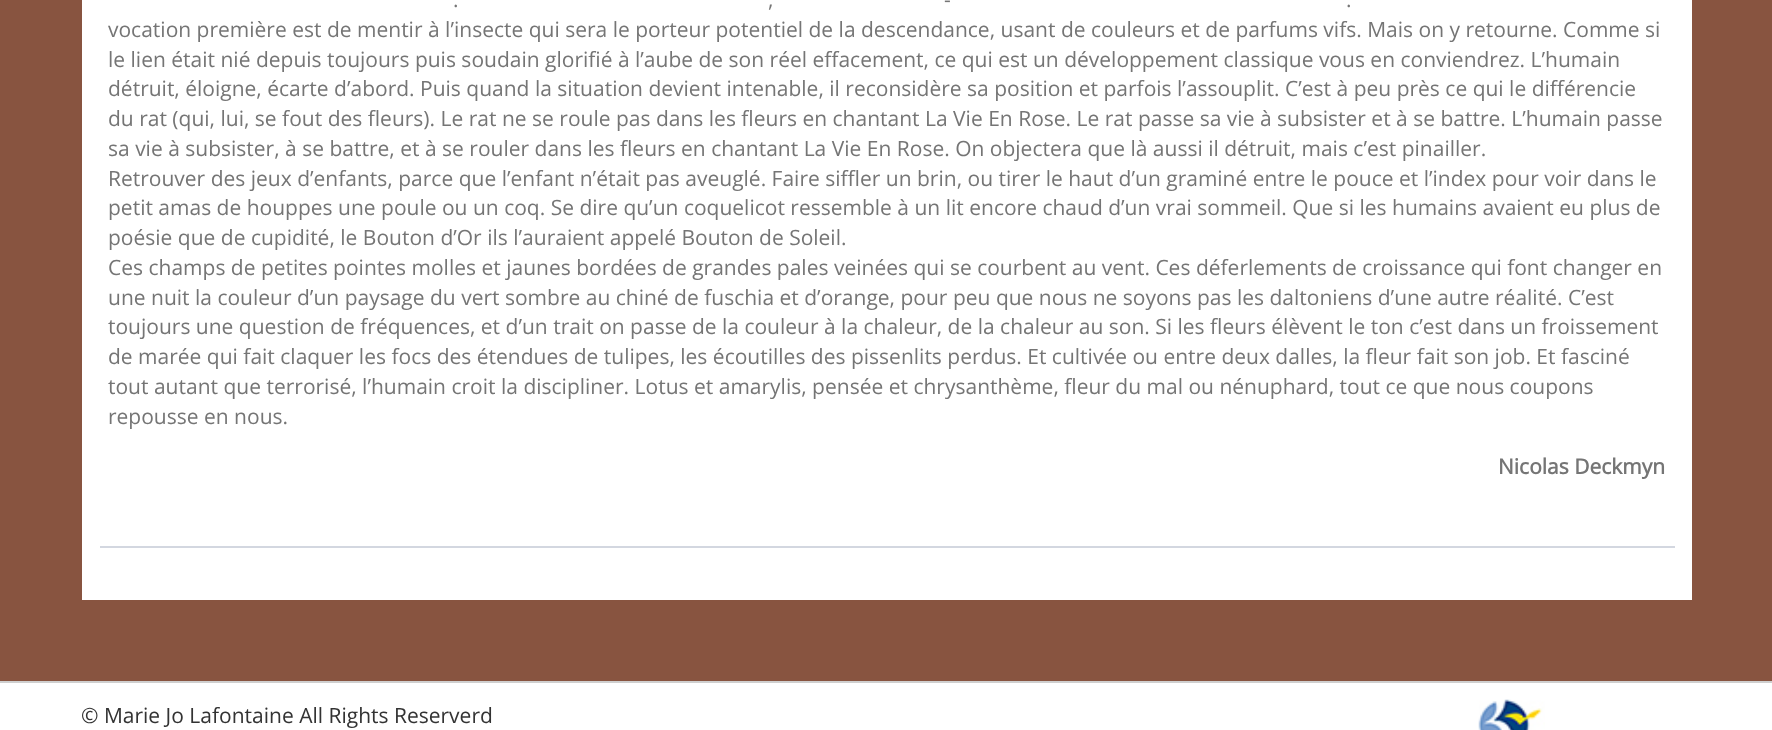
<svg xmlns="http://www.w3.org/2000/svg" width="1772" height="730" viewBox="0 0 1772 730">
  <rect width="100%" height="100%" fill="#885440"/>
  <rect x="82" y="0" width="1610" height="600" fill="#ffffff"/>
  <text x="944" y="7" font-family="Open Sans" font-size="21" fill="#757575">-</text>
  <text x="453" y="7" font-family="Open Sans" font-size="21" fill="#757575">.</text>
  <text x="768" y="7" font-family="Open Sans" font-size="21" fill="#757575">,</text>
  <text x="1346" y="7" font-family="Open Sans" font-size="21" fill="#757575">.</text>
  <text x="108" y="37" font-family="Open Sans" font-size="21" fill="#757575">vocation première est de mentir à l’insecte qui sera le porteur potentiel de la descendance, usant de couleurs et de parfums vifs. Mais on y retourne. Comme si</text>
  <text x="108" y="67" font-family="Open Sans" font-size="21" fill="#757575">le lien était nié depuis toujours puis soudain glorifié à l’aube de son réel effacement, ce qui est un développement classique vous en conviendrez. L’humain</text>
  <text x="108" y="96" font-family="Open Sans" font-size="21" fill="#757575">détruit, éloigne, écarte d’abord. Puis quand la situation devient intenable, il reconsidère sa position et parfois l’assouplit. C’est à peu près ce qui le différencie</text>
  <text x="108" y="126" font-family="Open Sans" font-size="21" fill="#757575">du rat (qui, lui, se fout des fleurs). Le rat ne se roule pas dans les fleurs en chantant La Vie En Rose. Le rat passe sa vie à subsister et à se battre. L’humain passe</text>
  <text x="108" y="156" font-family="Open Sans" font-size="21" fill="#757575">sa vie à subsister, à se battre, et à se rouler dans les fleurs en chantant La Vie En Rose. On objectera que là aussi il détruit, mais c’est pinailler.</text>
  <text x="108" y="186" font-family="Open Sans" font-size="21" fill="#757575">Retrouver des jeux d’enfants, parce que l’enfant n’était pas aveuglé. Faire siffler un brin, ou tirer le haut d’un graminé entre le pouce et l’index pour voir dans le</text>
  <text x="108" y="215" font-family="Open Sans" font-size="21" fill="#757575">petit amas de houppes une poule ou un coq. Se dire qu’un coquelicot ressemble à un lit encore chaud d’un vrai sommeil. Que si les humains avaient eu plus de</text>
  <text x="108" y="245" font-family="Open Sans" font-size="21" fill="#757575">poésie que de cupidité, le Bouton d’Or ils l’auraient appelé Bouton de Soleil.</text>
  <text x="108" y="275" font-family="Open Sans" font-size="21" fill="#757575">Ces champs de petites pointes molles et jaunes bordées de grandes pales veinées qui se courbent au vent. Ces déferlements de croissance qui font changer en</text>
  <text x="108" y="305" font-family="Open Sans" font-size="21" fill="#757575">une nuit la couleur d’un paysage du vert sombre au chiné de fuschia et d’orange, pour peu que nous ne soyons pas les daltoniens d’une autre réalité. C’est</text>
  <text x="108" y="334" font-family="Open Sans" font-size="21" fill="#757575">toujours une question de fréquences, et d’un trait on passe de la couleur à la chaleur, de la chaleur au son. Si les fleurs élèvent le ton c’est dans un froissement</text>
  <text x="108" y="364" font-family="Open Sans" font-size="21" fill="#757575">de marée qui fait claquer les focs des étendues de tulipes, les écoutilles des pissenlits perdus. Et cultivée ou entre deux dalles, la fleur fait son job. Et fasciné</text>
  <text x="108" y="394" font-family="Open Sans" font-size="21" fill="#757575">tout autant que terrorisé, l’humain croit la discipliner. Lotus et amarylis, pensée et chrysanthème, fleur du mal ou nénuphard, tout ce que nous coupons</text>
  <text x="108" y="424" font-family="Open Sans" font-size="21" fill="#757575">repousse en nous.</text>
  <text x="1498" y="474" font-family="Open Sans" font-size="21" font-weight="bold" fill="#757575">Nicolas Deckmyn</text>
  <rect x="100" y="546" width="1575" height="2" fill="#d3d7e0"/>
  <rect x="0" y="683" width="1772" height="47" fill="#ffffff"/>
  <rect x="0" y="681" width="1772" height="2" fill="#cfcfcf"/>
  <text x="81" y="723" font-family="Open Sans" font-size="21" fill="#333333">© Marie Jo Lafontaine All Rights Reserverd</text>
  <image x="1478" y="699" width="67" height="31" href="img1.png"/>
</svg>
